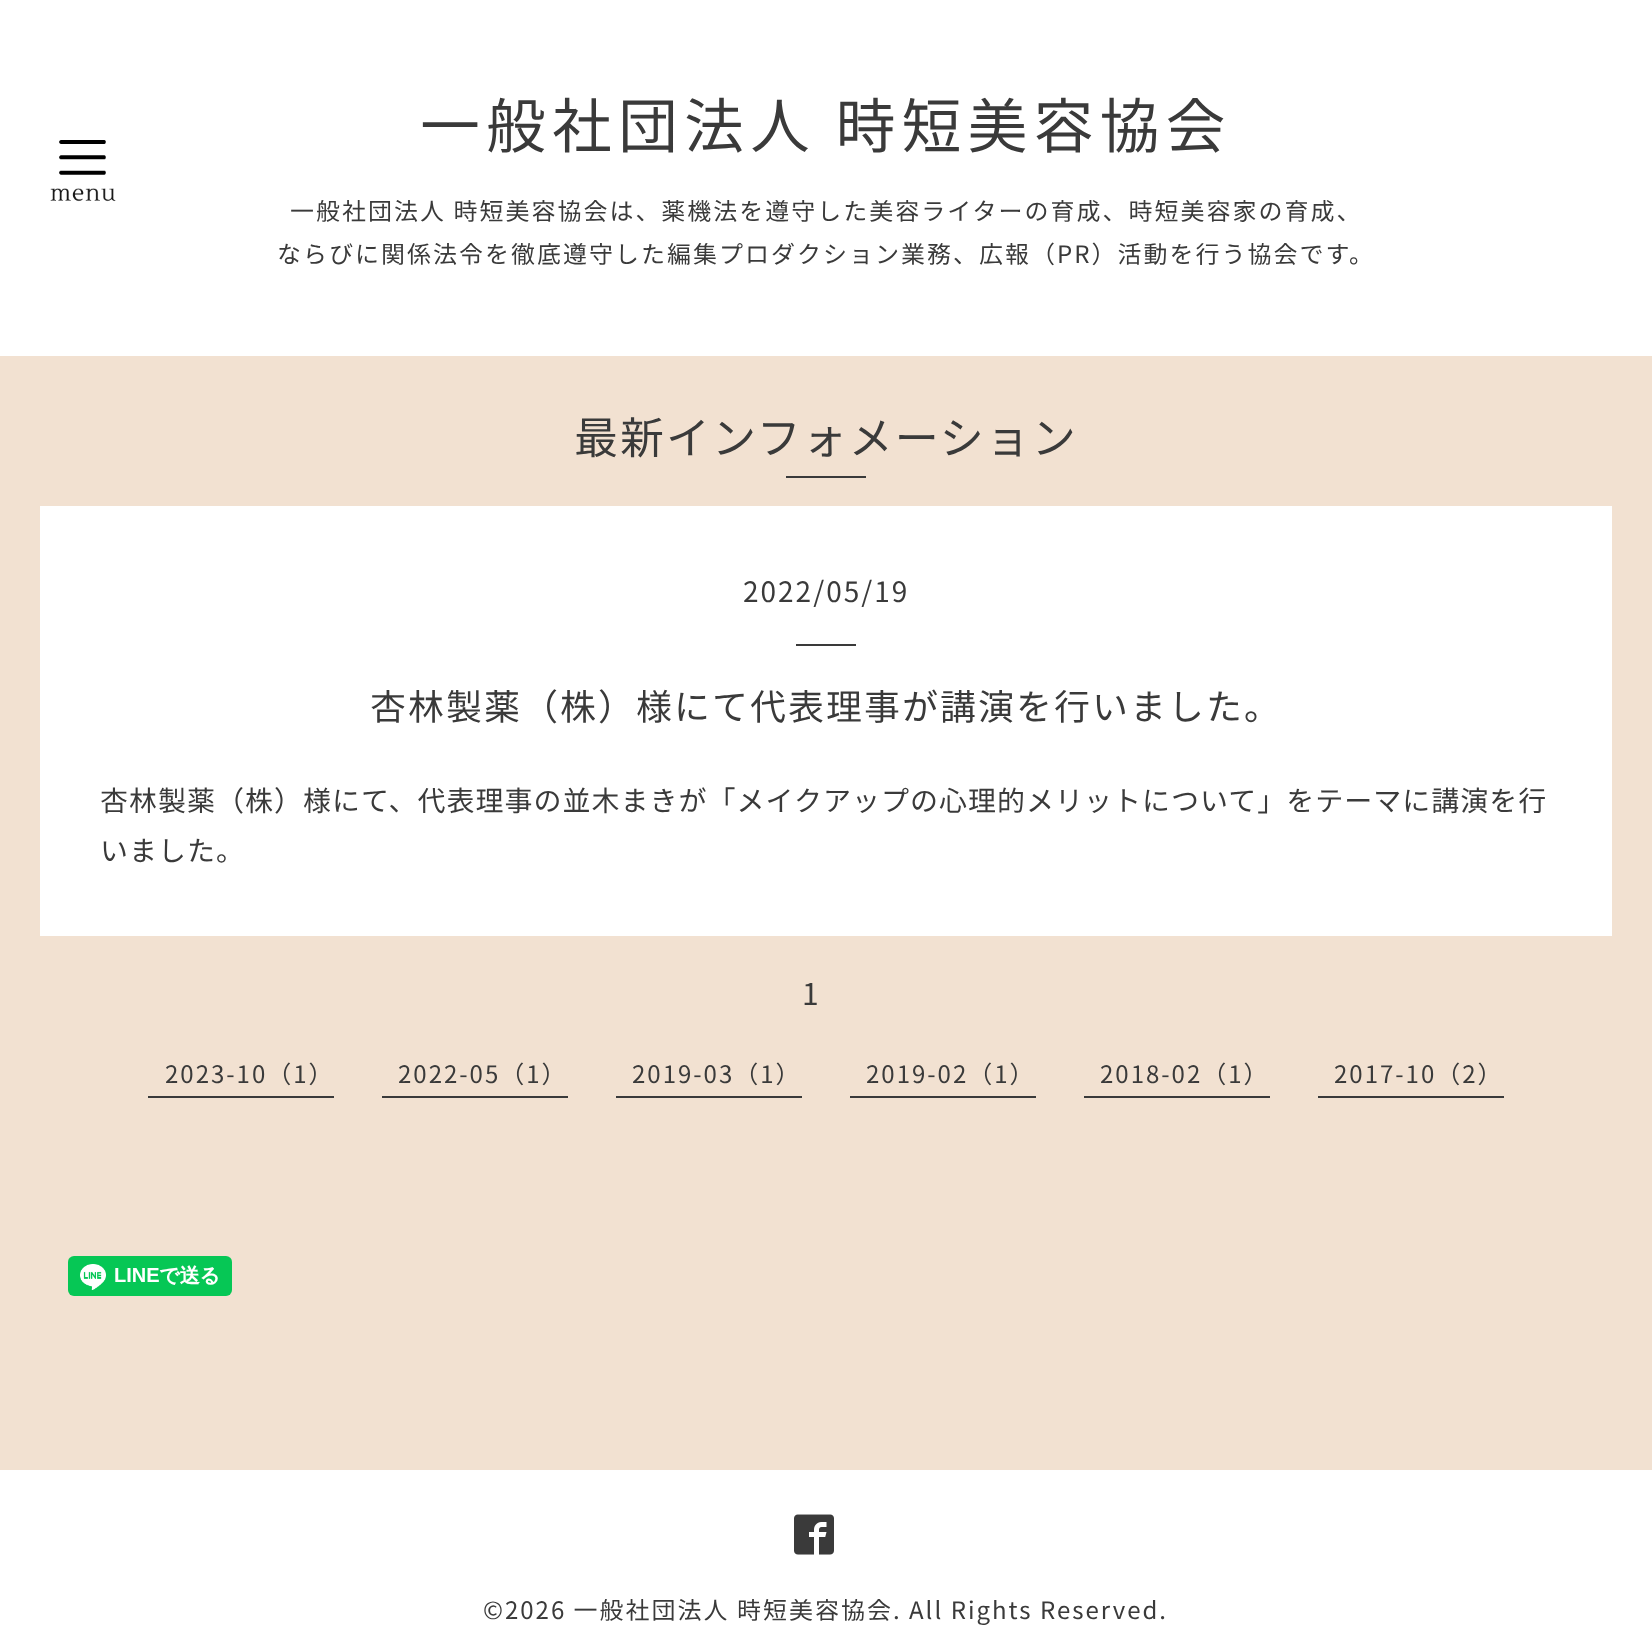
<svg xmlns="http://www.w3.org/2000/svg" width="1652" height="1652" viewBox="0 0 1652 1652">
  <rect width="100%" height="100%" fill="#ffffff"/>
  <image x="50" y="140" width="66" height="62" href="img1.png"/>
  <text x="420" y="148" font-family="Noto Sans JP" font-size="60" letter-spacing="6" fill="#3a3a3a">一般社団法人 時短美容協会</text>
  <text x="290" y="220" font-family="Noto Sans JP" font-size="24" letter-spacing="2" fill="#3a3a3a">一般社団法人 時短美容協会は、薬機法を遵守した美容ライターの育成、時短美容家の育成、</text>
  <text x="277" y="263" font-family="Noto Sans JP" font-size="24" letter-spacing="2" fill="#3a3a3a">ならびに関係法令を徹底遵守した編集プロダクション業務、広報（PR）活動を行う協会です。</text>
  <rect x="0" y="356" width="1652" height="1114" fill="#f2e1d1"/>
  <text x="574" y="454" font-family="Noto Sans JP" font-size="44" letter-spacing="2" fill="#3a3a3a">最新インフォメーション</text>
  <rect x="786" y="476" width="80" height="2" fill="#3a3a3a"/>
  <rect x="40" y="506" width="1572" height="430" fill="#ffffff"/>
  <text x="743" y="602" font-family="Noto Sans JP" font-size="28" letter-spacing="2" fill="#3a3a3a">2022/05/19</text>
  <rect x="796" y="644" width="60" height="2" fill="#3a3a3a"/>
  <text x="370" y="720" font-family="Noto Sans JP" font-size="36" letter-spacing="2" fill="#3a3a3a">杏林製薬（株）様にて代表理事が講演を行いました。</text>
  <text x="100" y="811" font-family="Noto Sans JP" font-size="28" letter-spacing="1" fill="#3a3a3a">杏林製薬（株）様にて、代表理事の並木まきが「メイクアップの心理的メリットについて」をテーマに講演を行</text>
  <text x="100" y="861" font-family="Noto Sans JP" font-size="28" letter-spacing="1" fill="#3a3a3a">いました。</text>
  <text x="802" y="1005" font-family="Noto Sans JP" font-size="30" letter-spacing="2" fill="#3a3a3a">1</text>
  <rect x="148" y="1096" width="186" height="2" fill="#3a3a3a"/>
  <text x="165" y="1083" font-family="Noto Sans JP" font-size="24" letter-spacing="2" fill="#3a3a3a">2023-10（1）</text>
  <rect x="382" y="1096" width="186" height="2" fill="#3a3a3a"/>
  <text x="398" y="1083" font-family="Noto Sans JP" font-size="24" letter-spacing="2" fill="#3a3a3a">2022-05（1）</text>
  <rect x="616" y="1096" width="186" height="2" fill="#3a3a3a"/>
  <text x="632" y="1083" font-family="Noto Sans JP" font-size="24" letter-spacing="2" fill="#3a3a3a">2019-03（1）</text>
  <rect x="850" y="1096" width="186" height="2" fill="#3a3a3a"/>
  <text x="866" y="1083" font-family="Noto Sans JP" font-size="24" letter-spacing="2" fill="#3a3a3a">2019-02（1）</text>
  <rect x="1084" y="1096" width="186" height="2" fill="#3a3a3a"/>
  <text x="1100" y="1083" font-family="Noto Sans JP" font-size="24" letter-spacing="2" fill="#3a3a3a">2018-02（1）</text>
  <rect x="1318" y="1096" width="186" height="2" fill="#3a3a3a"/>
  <text x="1334" y="1083" font-family="Noto Sans JP" font-size="24" letter-spacing="2" fill="#3a3a3a">2017-10（2）</text>
  <image x="68" y="1256" width="164" height="40" href="img2.png"/>
  <image x="794" y="1514" width="40" height="41" href="img3.png"/>
  <text x="483" y="1619" font-family="Noto Sans JP" font-size="24" letter-spacing="2" fill="#3a3a3a">©2026 一般社団法人 時短美容協会. All Rights Reserved.</text>
</svg>
